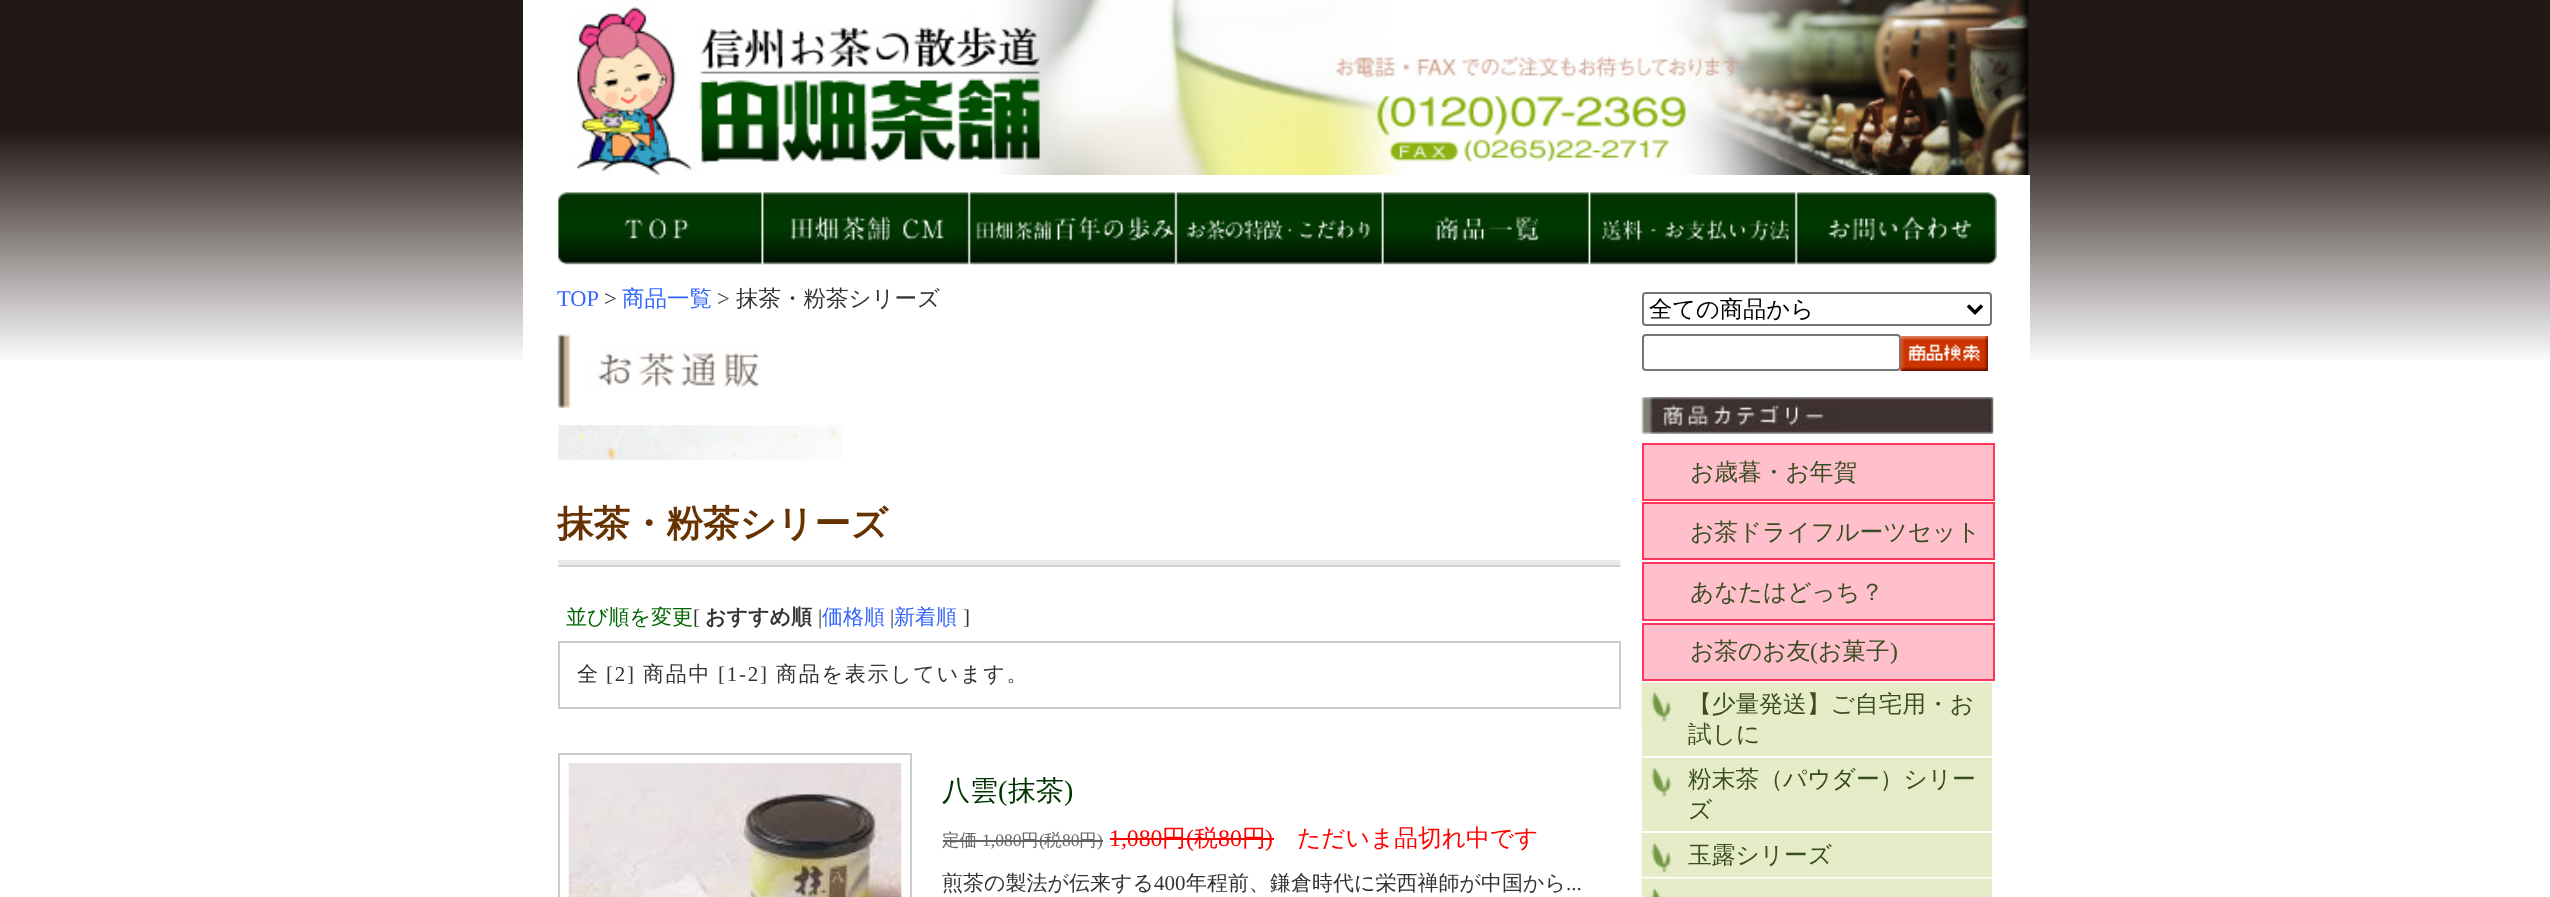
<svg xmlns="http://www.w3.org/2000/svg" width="2550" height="897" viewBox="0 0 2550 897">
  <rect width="100%" height="100%" fill="#ffffff"/>
  <image x="0" y="0" width="2550" height="360" href="img1.png"/>
  <rect x="523" y="0" width="1507" height="360" fill="#ffffff"/>
  <image x="573" y="0" width="1457" height="175" href="img2.png"/>
  <image x="558" y="192" width="1439" height="73" href="img3.png"/>
  <text x="557" y="306" font-family="Liberation Serif" font-size="22.5" fill="#3366ff">TOP</text>
  <text x="604" y="306" font-family="Liberation Serif" font-size="22.5" fill="#333333">&gt;</text>
  <text x="622" y="306" font-family="WenQuanYi Zen Hei" font-size="22.5" font-weight="500" fill="#3366ff">商品一覧</text>
  <text x="717" y="306" font-family="Liberation Serif" font-size="22.5" fill="#333333">&gt;</text>
  <text x="736" y="306" font-family="WenQuanYi Zen Hei" font-size="22.5" font-weight="500" fill="#333333">抹茶・粉茶シリーズ</text>
  <image x="558" y="334" width="202" height="74" href="img4.png"/>
  <image x="558" y="425" width="284" height="36" href="img5.png"/>
  <image x="558" y="560" width="1063" height="7" href="img6.png"/>
  <text x="557" y="536" font-family="WenQuanYi Zen Hei" font-size="36.5" font-weight="bold" fill="#663300">抹茶・粉茶シリーズ</text>
  <text x="566" y="624" font-family="WenQuanYi Zen Hei" font-size="21" font-weight="500" fill="#006600">並び順を変更</text>
  <text x="693" y="624" font-family="Liberation Serif" font-size="21" fill="#333333">[</text>
  <text x="705" y="624" font-family="WenQuanYi Zen Hei" font-size="21" font-weight="bold" fill="#333333">おすすめ順</text>
  <text x="818" y="624" font-family="Liberation Serif" font-size="21" fill="#333333">|</text>
  <text x="822" y="624" font-family="WenQuanYi Zen Hei" font-size="21" font-weight="500" fill="#3366ff">価格順</text>
  <text x="890" y="624" font-family="Liberation Serif" font-size="21" fill="#333333">|</text>
  <text x="894" y="624" font-family="WenQuanYi Zen Hei" font-size="21" font-weight="500" fill="#3366ff">新着順</text>
  <text x="963" y="624" font-family="Liberation Serif" font-size="21" fill="#333333">]</text>
  <rect x="559" y="642" width="1061" height="66" fill="none" stroke="#cccccc" stroke-width="2"/>
  <text x="577" y="681" font-family="WenQuanYi Zen Hei" font-size="21" font-weight="500" letter-spacing="1.75" fill="#333333">全</text>
  <text x="606" y="681" font-family="Liberation Serif" font-size="21" letter-spacing="1.75" fill="#333333">[2]</text>
  <text x="643" y="681" font-family="WenQuanYi Zen Hei" font-size="21" font-weight="500" letter-spacing="1.75" fill="#333333">商品中</text>
  <text x="718" y="681" font-family="Liberation Serif" font-size="21" letter-spacing="1.75" fill="#333333">[1-2]</text>
  <text x="776" y="681" font-family="WenQuanYi Zen Hei" font-size="21" font-weight="500" letter-spacing="1.75" fill="#333333">商品を表示しています。</text>
  <rect x="559" y="754" width="352" height="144" fill="none" stroke="#cccccc" stroke-width="2"/>
  <image x="568" y="763" width="334" height="134" href="img7.png"/>
  <text x="942" y="800" font-family="WenQuanYi Zen Hei" font-size="28" font-weight="500" fill="#003300">八雲</text>
  <text x="998" y="800" font-family="Liberation Serif" font-size="28" fill="#003300">(</text>
  <text x="1008" y="800" font-family="WenQuanYi Zen Hei" font-size="28" font-weight="500" fill="#003300">抹茶</text>
  <text x="1064" y="800" font-family="Liberation Serif" font-size="28" fill="#003300">)</text>
  <text x="942" y="846" font-family="WenQuanYi Zen Hei" font-size="17.5" font-weight="500" fill="#666666">定価</text>
  <text x="982" y="846" font-family="Liberation Serif" font-size="17.5" fill="#666666">1,080</text>
  <rect x="943" y="840" width="160" height="2" fill="#666666"/>
  <text x="1021" y="846" font-family="WenQuanYi Zen Hei" font-size="17.5" font-weight="500" fill="#666666">円</text>
  <text x="1039" y="846" font-family="Liberation Serif" font-size="17.5" fill="#666666">(</text>
  <text x="1044" y="846" font-family="WenQuanYi Zen Hei" font-size="17.5" font-weight="500" fill="#666666">税</text>
  <text x="1062" y="846" font-family="Liberation Serif" font-size="17.5" fill="#666666">80</text>
  <text x="1079" y="846" font-family="WenQuanYi Zen Hei" font-size="17.5" font-weight="500" fill="#666666">円</text>
  <text x="1097" y="846" font-family="Liberation Serif" font-size="17.5" fill="#666666">)</text>
  <text x="1109" y="846" font-family="Liberation Serif" font-size="23.75" fill="#ff0000">1,080</text>
  <text x="1162" y="846" font-family="WenQuanYi Zen Hei" font-size="23.75" font-weight="500" fill="#ff0000">円</text>
  <rect x="1110" y="838" width="164" height="2" fill="#ff0000"/>
  <text x="1186" y="846" font-family="Liberation Serif" font-size="23.75" fill="#ff0000">(</text>
  <text x="1194" y="846" font-family="WenQuanYi Zen Hei" font-size="23.75" font-weight="500" fill="#ff0000">税</text>
  <text x="1218" y="846" font-family="Liberation Serif" font-size="23.75" fill="#ff0000">80</text>
  <text x="1242" y="846" font-family="WenQuanYi Zen Hei" font-size="23.75" font-weight="500" fill="#ff0000">円</text>
  <text x="1265" y="846" font-family="Liberation Serif" font-size="23.75" fill="#ff0000">)</text>
  <text x="1297" y="846" font-family="WenQuanYi Zen Hei" font-size="23.75" font-weight="500" fill="#ff0000">ただいま品切れ中です</text>
  <text x="942" y="890" font-family="WenQuanYi Zen Hei" font-size="21" font-weight="500" fill="#333333">煎茶の製法が伝来する</text>
  <text x="1154" y="890" font-family="Liberation Serif" font-size="21" fill="#333333">400</text>
  <text x="1186" y="890" font-family="WenQuanYi Zen Hei" font-size="21" font-weight="500" fill="#333333">年程前、鎌倉時代に栄西禅師が中国から</text>
  <text x="1566" y="890" font-family="Liberation Serif" font-size="21" fill="#333333">...</text>
  <rect x="1643" y="293" width="348" height="32" rx="3" fill="none" stroke="#767676" stroke-width="2"/>
  <path d="M1968 305.5L1975 312.5L1982 305.5" fill="none" stroke="#000000" stroke-width="3.5"/>
  <text x="1649" y="317" font-family="WenQuanYi Zen Hei" font-size="23.25" font-weight="500" fill="#000000">全ての商品から</text>
  <rect x="1643" y="335" width="257" height="35" rx="3" fill="none" stroke="#767676" stroke-width="2"/>
  <image x="1900" y="336" width="88" height="35" href="img8.png"/>
  <image x="1641" y="397" width="353" height="37" href="img9.png"/>
  <rect x="1643" y="444" width="351" height="56" fill="#ffc0cb" stroke="#ff355a" stroke-width="2"/>
  <text x="1690" y="480" font-family="WenQuanYi Zen Hei" font-size="23.75" font-weight="500" fill="#3a4d22">お歳暮・お年賀</text>
  <rect x="1643" y="503" width="351" height="56" fill="#ffc0cb" stroke="#ff355a" stroke-width="2"/>
  <text x="1690" y="540" font-family="WenQuanYi Zen Hei" font-size="23.75" font-weight="500" fill="#3a4d22">お茶ドライフルーツセット</text>
  <rect x="1643" y="563" width="351" height="57" fill="#ffc0cb" stroke="#ff355a" stroke-width="2"/>
  <text x="1690" y="600" font-family="WenQuanYi Zen Hei" font-size="23.75" font-weight="500" fill="#3a4d22">あなたはどっち？</text>
  <rect x="1643" y="624" width="351" height="56" fill="#ffc0cb" stroke="#ff355a" stroke-width="2"/>
  <text x="1690" y="659" font-family="WenQuanYi Zen Hei" font-size="23.75" font-weight="500" fill="#3a4d22">お茶のお友</text>
  <text x="1810" y="659" font-family="Liberation Serif" font-size="23.75" fill="#3a4d22">(</text>
  <text x="1818" y="659" font-family="WenQuanYi Zen Hei" font-size="23.75" font-weight="500" fill="#3a4d22">お菓子</text>
  <text x="1890" y="659" font-family="Liberation Serif" font-size="23.75" fill="#3a4d22">)</text>
  <rect x="1642" y="683" width="350" height="73" fill="#e6ecc8"/>
  <image x="1641" y="682" width="351" height="45" href="img10.png"/>
  <text x="1688" y="712" font-family="WenQuanYi Zen Hei" font-size="23.75" font-weight="500" fill="#3a4d22">【少量発送】ご自宅用・お</text>
  <text x="1688" y="742" font-family="WenQuanYi Zen Hei" font-size="23.75" font-weight="500" fill="#3a4d22">試しに</text>
  <rect x="1642" y="758" width="350" height="73" fill="#e6ecc8"/>
  <image x="1641" y="757" width="351" height="45" href="img11.png"/>
  <text x="1688" y="787" font-family="WenQuanYi Zen Hei" font-size="23.75" font-weight="500" fill="#3a4d22">粉末茶（パウダー）シリー</text>
  <text x="1688" y="818" font-family="WenQuanYi Zen Hei" font-size="23.75" font-weight="500" fill="#3a4d22">ズ</text>
  <rect x="1642" y="833" width="350" height="44" fill="#e6ecc8"/>
  <image x="1641" y="833" width="31" height="44" href="img12.png"/>
  <text x="1688" y="863" font-family="WenQuanYi Zen Hei" font-size="23.75" font-weight="500" fill="#3a4d22">玉露シリーズ</text>
  <rect x="1991" y="879" width="1" height="18" fill="#e6ecc8"/>
  <image x="1641" y="878" width="351" height="19" href="img13.png"/>
</svg>
